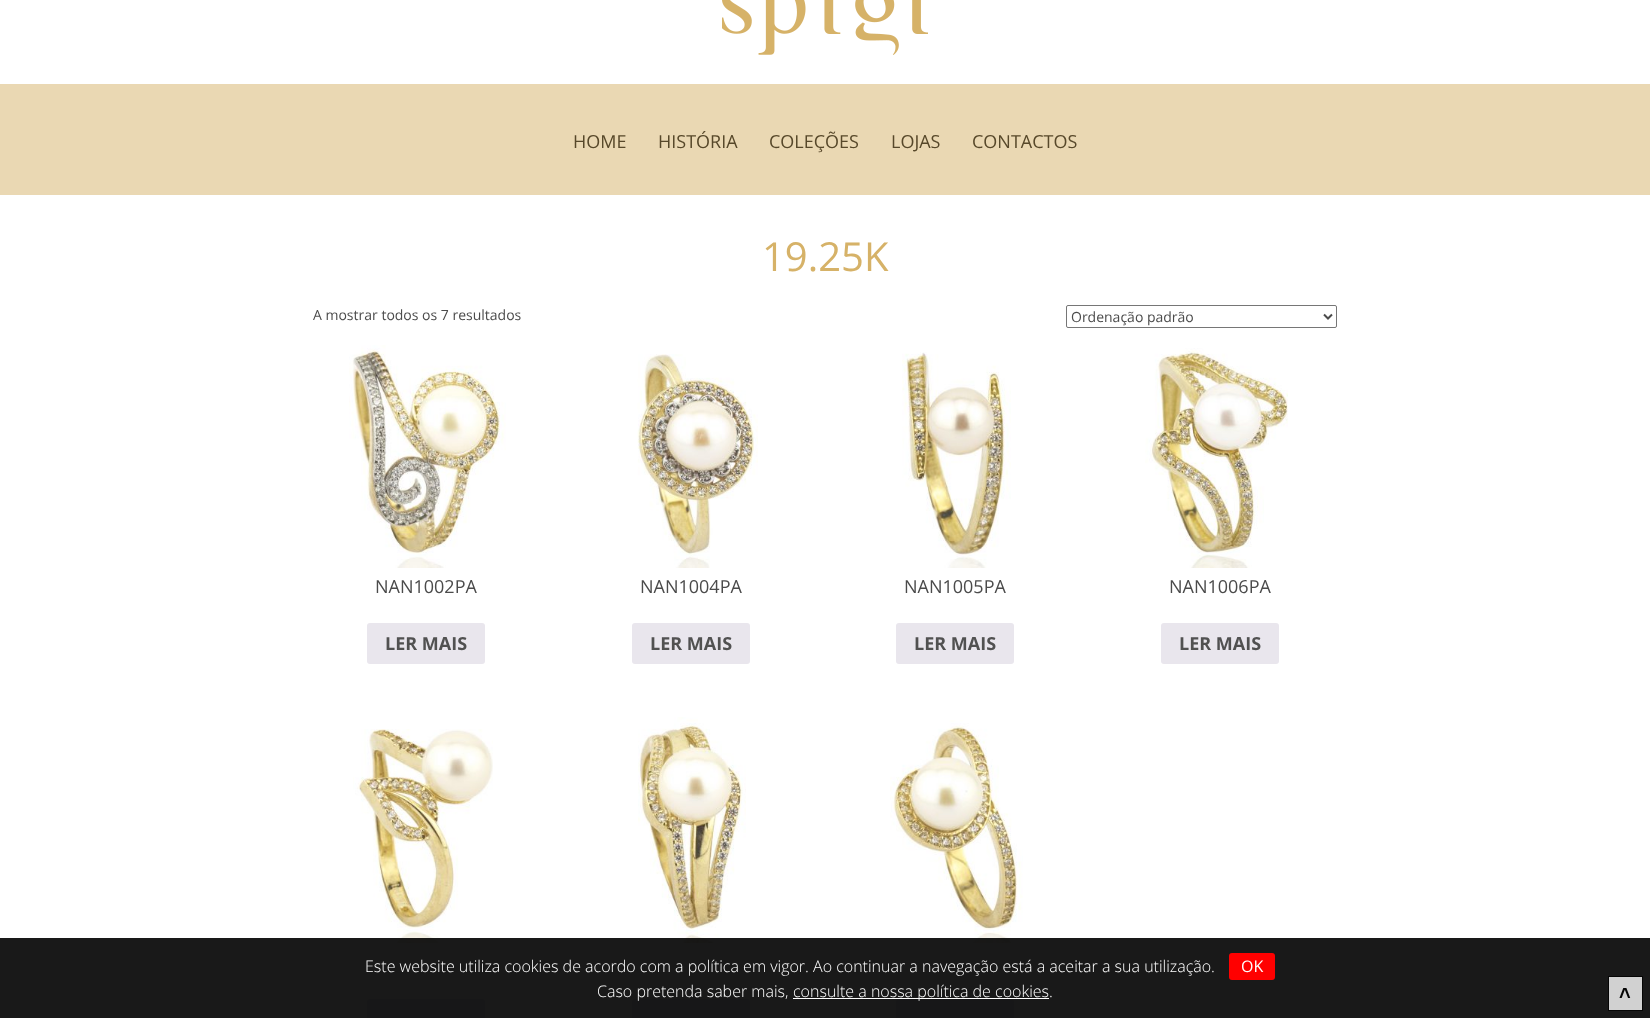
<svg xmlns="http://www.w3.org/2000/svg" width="1650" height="1018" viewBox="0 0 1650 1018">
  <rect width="100%" height="100%" fill="#ffffff"/>
  <image x="722" y="0" width="206" height="55" href="img1.png"/>
  <rect x="0" y="84" width="1650" height="111" fill="#ead8b3"/>
  <text x="573" y="148" font-family="Open Sans" font-size="18" fill="#57482a">HOME</text>
  <text x="658" y="148" font-family="Open Sans" font-size="18" fill="#57482a">HISTÓRIA</text>
  <text x="769" y="148" font-family="Open Sans" font-size="18" fill="#57482a">COLEÇÕES</text>
  <text x="891" y="148" font-family="Open Sans" font-size="18" fill="#57482a">LOJAS</text>
  <text x="972" y="148" font-family="Open Sans" font-size="18" fill="#57482a">CONTACTOS</text>
  <text x="762" y="271" font-family="Open Sans" font-size="40" fill="#d6b268">19.25K</text>
  <text x="313" y="320" font-family="Open Sans" font-size="14" fill="#4b4b4b">A mostrar todos os 7 resultados</text>
  <rect x="1066.5" y="305.5" width="270" height="22" rx="1.5" fill="none" stroke="#767676"/>
  <path d="M1324 314.5L1328 318.5L1332 314.5" fill="none" stroke="#4b4b4b" stroke-width="2"/>
  <text x="1071" y="322" font-family="Open Sans" font-size="14" fill="#4b4b4b">Ordenação padrão</text>
  <image x="349" y="345" width="157" height="223" href="img2.png"/>
  <text x="375" y="593" font-family="Open Sans" font-size="18" fill="#4b4b4b">NAN1002PA</text>
  <rect x="367" y="623" width="118" height="41" rx="3" fill="#e9e6ed"/>
  <text x="385" y="650" font-family="Open Sans" font-size="18" font-weight="bold" fill="#515151">LER MAIS</text>
  <image x="637" y="354" width="121" height="214" href="img3.png"/>
  <text x="640" y="593" font-family="Open Sans" font-size="18" fill="#4b4b4b">NAN1004PA</text>
  <rect x="632" y="623" width="118" height="41" rx="3" fill="#e9e6ed"/>
  <text x="650" y="650" font-family="Open Sans" font-size="18" font-weight="bold" fill="#515151">LER MAIS</text>
  <image x="902" y="352" width="109" height="216" href="img4.png"/>
  <text x="904" y="593" font-family="Open Sans" font-size="18" fill="#4b4b4b">NAN1005PA</text>
  <rect x="896" y="623" width="118" height="41" rx="3" fill="#e9e6ed"/>
  <text x="914" y="650" font-family="Open Sans" font-size="18" font-weight="bold" fill="#515151">LER MAIS</text>
  <image x="1145" y="348" width="143" height="220" href="img5.png"/>
  <text x="1169" y="593" font-family="Open Sans" font-size="18" fill="#4b4b4b">NAN1006PA</text>
  <rect x="1161" y="623" width="118" height="41" rx="3" fill="#e9e6ed"/>
  <text x="1179" y="650" font-family="Open Sans" font-size="18" font-weight="bold" fill="#515151">LER MAIS</text>
  <image x="353" y="729" width="140" height="214" href="img6.png"/>
  <rect x="367" y="999" width="118" height="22" rx="3" fill="#e9e6ed"/>
  <image x="638" y="717" width="108" height="226" href="img7.png"/>
  <rect x="632" y="999" width="118" height="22" rx="3" fill="#e9e6ed"/>
  <image x="890" y="720" width="133" height="223" href="img8.png"/>
  <rect x="896" y="999" width="118" height="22" rx="3" fill="#e9e6ed"/>
  <rect x="0" y="938" width="1650" height="80" fill="#000000" fill-opacity="0.9"/>
  <text x="365" y="972" font-family="Open Sans" font-size="16" font-weight="300" fill="#ffffff">Este website utiliza cookies de acordo com a política em vigor. Ao continuar a navegação está a aceitar a sua utilização.</text>
  <rect x="1229" y="953" width="46" height="27" rx="3" fill="#ff0000"/>
  <text x="1241" y="972" font-family="Open Sans" font-size="16" fill="#ffffff">OK</text>
  <text x="597" y="997" font-family="Open Sans" font-size="16" font-weight="300" fill="#ffffff">Caso pretenda saber mais,</text>
  <rect x="793" y="998" width="256" height="1" fill="#ffffff"/>
  <text x="793" y="997" font-family="Open Sans" font-size="16" font-weight="300" fill="#ffffff">consulte a nossa política de cookies.</text>
  <rect x="1608.5" y="976.5" width="34" height="34" fill="#d1d1d1" stroke="#050505"/>
  <text x="1619" y="1000" font-family="Liberation Sans" font-size="20" font-weight="bold" fill="#050505">˄</text>
</svg>
